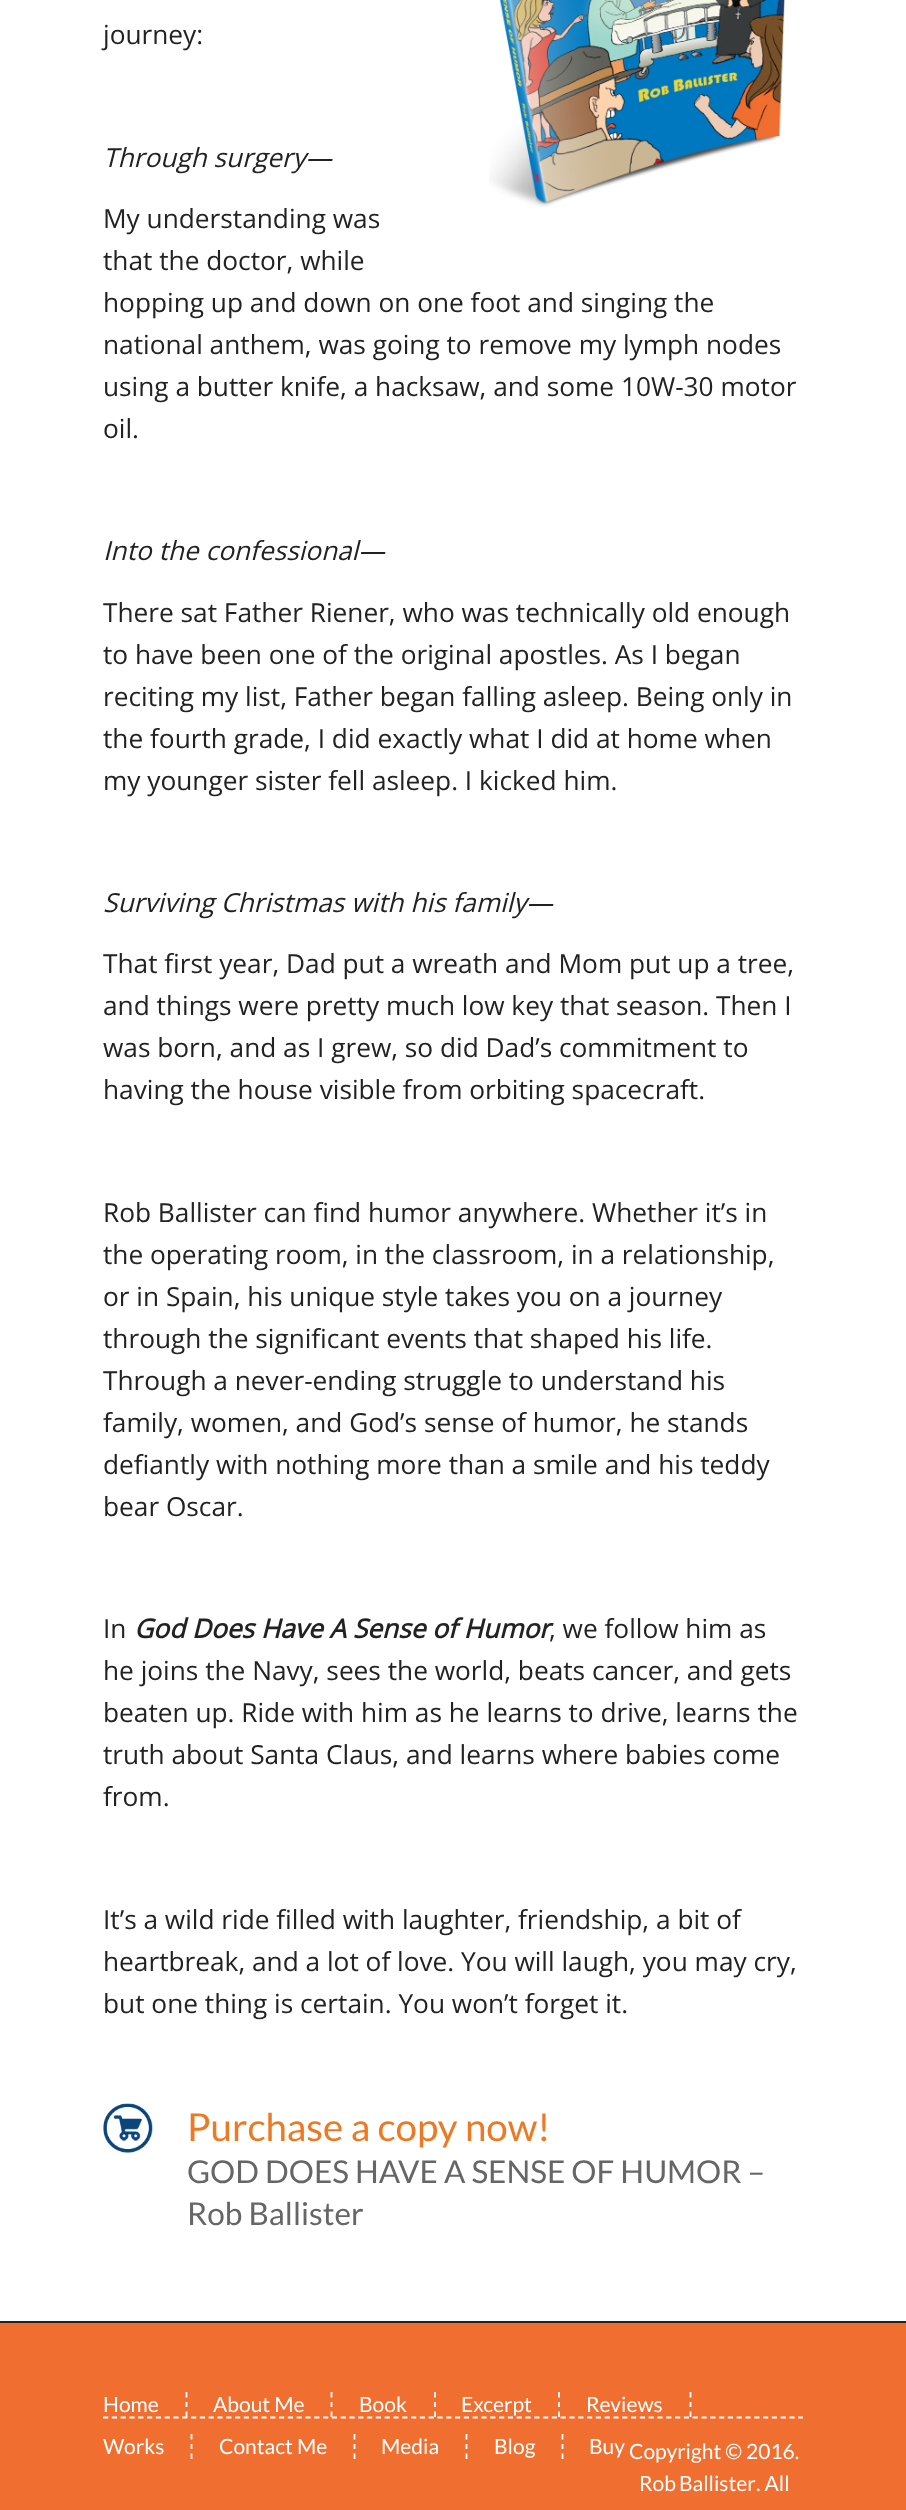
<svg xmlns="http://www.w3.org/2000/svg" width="906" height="2510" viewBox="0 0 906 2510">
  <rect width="100%" height="100%" fill="#ffffff"/>
  <text x="103" y="44" font-family="Open Sans" font-size="26.25" fill="#222222">journey:</text>
  <image x="489" y="0" width="296" height="207" href="img1.png"/>
  <text x="103" y="167" font-family="Open Sans" font-size="26.25" font-style="italic" fill="#222222">Through surgery—</text>
  <text x="103" y="228" font-family="Open Sans" font-size="26.25" fill="#222222">My understanding was</text>
  <text x="103" y="270" font-family="Open Sans" font-size="26.25" fill="#222222">that the doctor, while</text>
  <text x="103" y="312" font-family="Open Sans" font-size="26.25" fill="#222222">hopping up and down on one foot and singing the</text>
  <text x="103" y="354" font-family="Open Sans" font-size="26.25" fill="#222222">national anthem, was going to remove my lymph nodes</text>
  <text x="103" y="396" font-family="Open Sans" font-size="26.25" fill="#222222">using a butter knife, a hacksaw, and some 10W-30 motor</text>
  <text x="103" y="438" font-family="Open Sans" font-size="26.25" fill="#222222">oil.</text>
  <text x="103" y="560" font-family="Open Sans" font-size="26.25" font-style="italic" fill="#222222">Into the confessional—</text>
  <text x="103" y="622" font-family="Open Sans" font-size="26.25" fill="#222222">There sat Father Riener, who was technically old enough</text>
  <text x="103" y="664" font-family="Open Sans" font-size="26.25" fill="#222222">to have been one of the original apostles. As I began</text>
  <text x="103" y="706" font-family="Open Sans" font-size="26.25" fill="#222222">reciting my list, Father began falling asleep. Being only in</text>
  <text x="103" y="748" font-family="Open Sans" font-size="26.25" fill="#222222">the fourth grade, I did exactly what I did at home when</text>
  <text x="103" y="790" font-family="Open Sans" font-size="26.25" fill="#222222">my younger sister fell asleep. I kicked him.</text>
  <text x="103" y="912" font-family="Open Sans" font-size="26.25" font-style="italic" fill="#222222">Surviving Christmas with his family—</text>
  <text x="103" y="973" font-family="Open Sans" font-size="26.25" fill="#222222">That first year, Dad put a wreath and Mom put up a tree,</text>
  <text x="103" y="1015" font-family="Open Sans" font-size="26.25" fill="#222222">and things were pretty much low key that season. Then I</text>
  <text x="103" y="1057" font-family="Open Sans" font-size="26.25" fill="#222222">was born, and as I grew, so did Dad’s commitment to</text>
  <text x="103" y="1099" font-family="Open Sans" font-size="26.25" fill="#222222">having the house visible from orbiting spacecraft.</text>
  <text x="103" y="1222" font-family="Open Sans" font-size="26.25" fill="#222222">Rob Ballister can find humor anywhere. Whether it’s in</text>
  <text x="103" y="1264" font-family="Open Sans" font-size="26.25" fill="#222222">the operating room, in the classroom, in a relationship,</text>
  <text x="103" y="1306" font-family="Open Sans" font-size="26.25" fill="#222222">or in Spain, his unique style takes you on a journey</text>
  <text x="103" y="1348" font-family="Open Sans" font-size="26.25" fill="#222222">through the significant events that shaped his life.</text>
  <text x="103" y="1390" font-family="Open Sans" font-size="26.25" fill="#222222">Through a never-ending struggle to understand his</text>
  <text x="103" y="1432" font-family="Open Sans" font-size="26.25" fill="#222222">family, women, and God’s sense of humor, he stands</text>
  <text x="103" y="1474" font-family="Open Sans" font-size="26.25" fill="#222222">defiantly with nothing more than a smile and his teddy</text>
  <text x="103" y="1516" font-family="Open Sans" font-size="26.25" fill="#222222">bear Oscar.</text>
  <text x="103" y="1638" font-family="Open Sans" font-size="26.25" fill="#222222">In</text>
  <text x="134" y="1638" font-family="Open Sans" font-size="26.25" font-weight="bold" font-style="italic" fill="#222222">God Does Have A Sense of Humor</text>
  <text x="549" y="1638" font-family="Open Sans" font-size="26.25" fill="#222222">, we follow him as</text>
  <text x="103" y="1680" font-family="Open Sans" font-size="26.25" fill="#222222">he joins the Navy, sees the world, beats cancer, and gets</text>
  <text x="103" y="1722" font-family="Open Sans" font-size="26.25" fill="#222222">beaten up. Ride with him as he learns to drive, learns the</text>
  <text x="103" y="1764" font-family="Open Sans" font-size="26.25" fill="#222222">truth about Santa Claus, and learns where babies come</text>
  <text x="103" y="1806" font-family="Open Sans" font-size="26.25" fill="#222222">from.</text>
  <text x="103" y="1929" font-family="Open Sans" font-size="26.25" fill="#222222">It’s a wild ride filled with laughter, friendship, a bit of</text>
  <text x="103" y="1971" font-family="Open Sans" font-size="26.25" fill="#222222">heartbreak, and a lot of love. You will laugh, you may cry,</text>
  <text x="103" y="2013" font-family="Open Sans" font-size="26.25" fill="#222222">but one thing is certain. You won’t forget it.</text>
  <image x="103" y="2103" width="50" height="50" href="img2.png"/>
  <text x="187" y="2141" font-family="Lato" font-size="38.5" fill="#ee7923">Purchase a copy now!</text>
  <text x="187" y="2183" font-family="Lato" font-size="31.5" fill="#666666">GOD DOES HAVE A SENSE OF HUMOR –</text>
  <text x="187" y="2225" font-family="Lato" font-size="31.5" fill="#666666">Rob Ballister</text>
  <rect x="0" y="2323" width="906" height="187" fill="#f06e30"/>
  <rect x="0" y="2321" width="906" height="2" fill="#222222"/>
  <path d="M103 2417.5H803" fill="none" stroke="#ffffff" stroke-width="1.8" stroke-dasharray="5.25 3.55"/>
  <path d="M186.5 2392V2397.5M186.5 2402V2407M186.5 2411.5V2417" fill="none" stroke="#ffffff" stroke-width="1.8"/>
  <text x="103" y="2412" font-family="Lato" font-size="21" fill="#ffffff">Home</text>
  <path d="M331.5 2392V2397.5M331.5 2402V2407M331.5 2411.5V2417" fill="none" stroke="#ffffff" stroke-width="1.8"/>
  <text x="213" y="2412" font-family="Lato" font-size="21" fill="#ffffff">About Me</text>
  <path d="M435 2392V2397.5M435 2402V2407M435 2411.5V2417" fill="none" stroke="#ffffff" stroke-width="1.8"/>
  <text x="359" y="2412" font-family="Lato" font-size="21" fill="#ffffff">Book</text>
  <path d="M559 2392V2397.5M559 2402V2407M559 2411.5V2417" fill="none" stroke="#ffffff" stroke-width="1.8"/>
  <text x="461" y="2412" font-family="Lato" font-size="21" fill="#ffffff">Excerpt</text>
  <path d="M690.5 2392V2397.5M690.5 2402V2407M690.5 2411.5V2417" fill="none" stroke="#ffffff" stroke-width="1.8"/>
  <text x="586" y="2412" font-family="Lato" font-size="21" fill="#ffffff">Reviews</text>
  <path d="M191.5 2434V2439.5M191.5 2444V2449M191.5 2453.5V2459" fill="none" stroke="#ffffff" stroke-width="1.8"/>
  <text x="103" y="2454" font-family="Lato" font-size="21" fill="#ffffff">Works</text>
  <path d="M354.5 2434V2439.5M354.5 2444V2449M354.5 2453.5V2459" fill="none" stroke="#ffffff" stroke-width="1.8"/>
  <text x="219" y="2454" font-family="Lato" font-size="21" fill="#ffffff">Contact Me</text>
  <path d="M466.5 2434V2439.5M466.5 2444V2449M466.5 2453.5V2459" fill="none" stroke="#ffffff" stroke-width="1.8"/>
  <text x="381" y="2454" font-family="Lato" font-size="21" fill="#ffffff">Media</text>
  <path d="M562.5 2434V2439.5M562.5 2444V2449M562.5 2453.5V2459" fill="none" stroke="#ffffff" stroke-width="1.8"/>
  <text x="494" y="2454" font-family="Lato" font-size="21" fill="#ffffff">Blog</text>
  <text x="589" y="2454" font-family="Lato" font-size="21" fill="#ffffff">Buy</text>
  <text x="629" y="2459" font-family="Lato" font-size="21" fill="#ffffff">Copyright © 2016.</text>
  <text x="639" y="2491" word-spacing="-1" font-family="Lato" font-size="21" fill="#ffffff">Rob Ballister</text>
  <text x="756" y="2491" font-family="Lato" font-size="21" fill="#ffffff">. All</text>
</svg>
